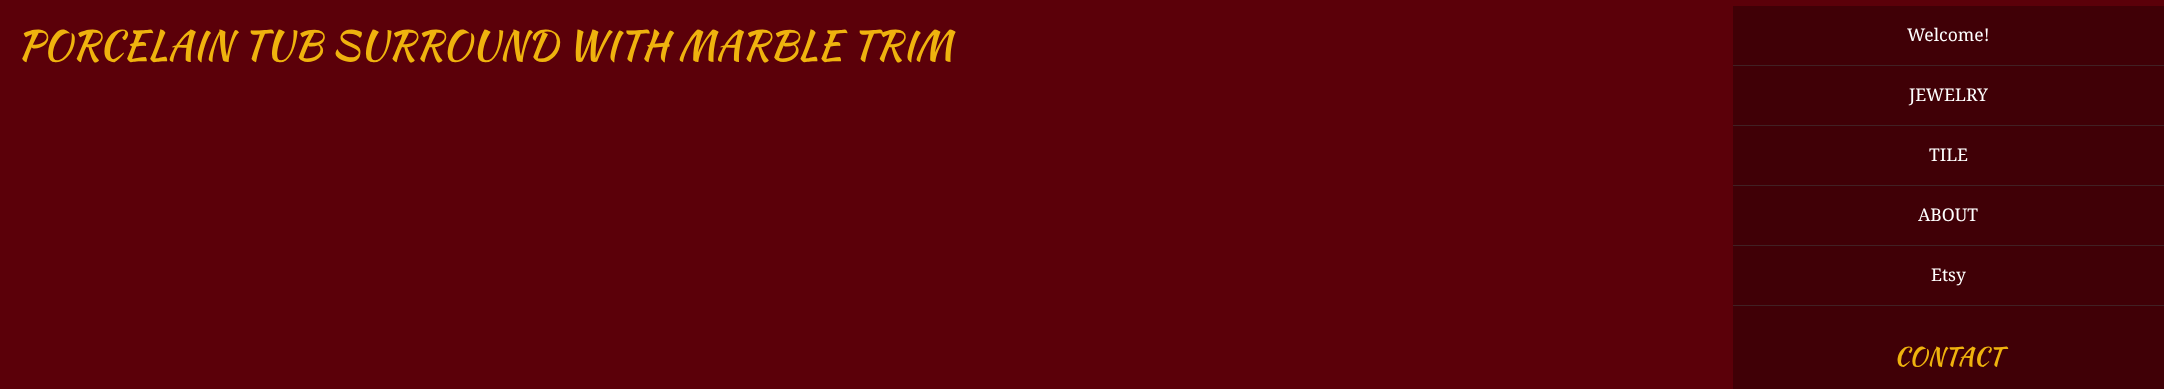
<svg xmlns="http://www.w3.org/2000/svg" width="2164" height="389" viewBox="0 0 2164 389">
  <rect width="100%" height="100%" fill="#5b0009"/>
  <text x="17" y="59" font-family="Kaushan Script" font-size="40" fill="#efb30e">PORCELAIN TUB SURROUND WITH MARBLE TRIM</text>
  <rect x="1733" y="6" width="431" height="383" fill="#400006"/>
  <rect x="1733" y="65" width="431" height="1" fill="#412124"/>
  <text x="1907" y="41" font-family="Droid Serif" font-size="17.5" fill="#ffffff">Welcome!</text>
  <rect x="1733" y="125" width="431" height="1" fill="#412124"/>
  <text x="1909" y="101" font-family="Droid Serif" font-size="17.5" fill="#ffffff">JEWELRY</text>
  <rect x="1733" y="185" width="431" height="1" fill="#412124"/>
  <text x="1929" y="161" font-family="Droid Serif" font-size="17.5" fill="#ffffff">TILE</text>
  <rect x="1733" y="245" width="431" height="1" fill="#412124"/>
  <text x="1918" y="221" font-family="Droid Serif" font-size="17.5" fill="#ffffff">ABOUT</text>
  <rect x="1733" y="305" width="431" height="1" fill="#412124"/>
  <text x="1931" y="281" font-family="Droid Serif" font-size="17.5" fill="#ffffff">Etsy</text>
  <text x="1894" y="365" font-family="Kaushan Script" font-size="25" fill="#efb30e">CONTACT</text>
</svg>
